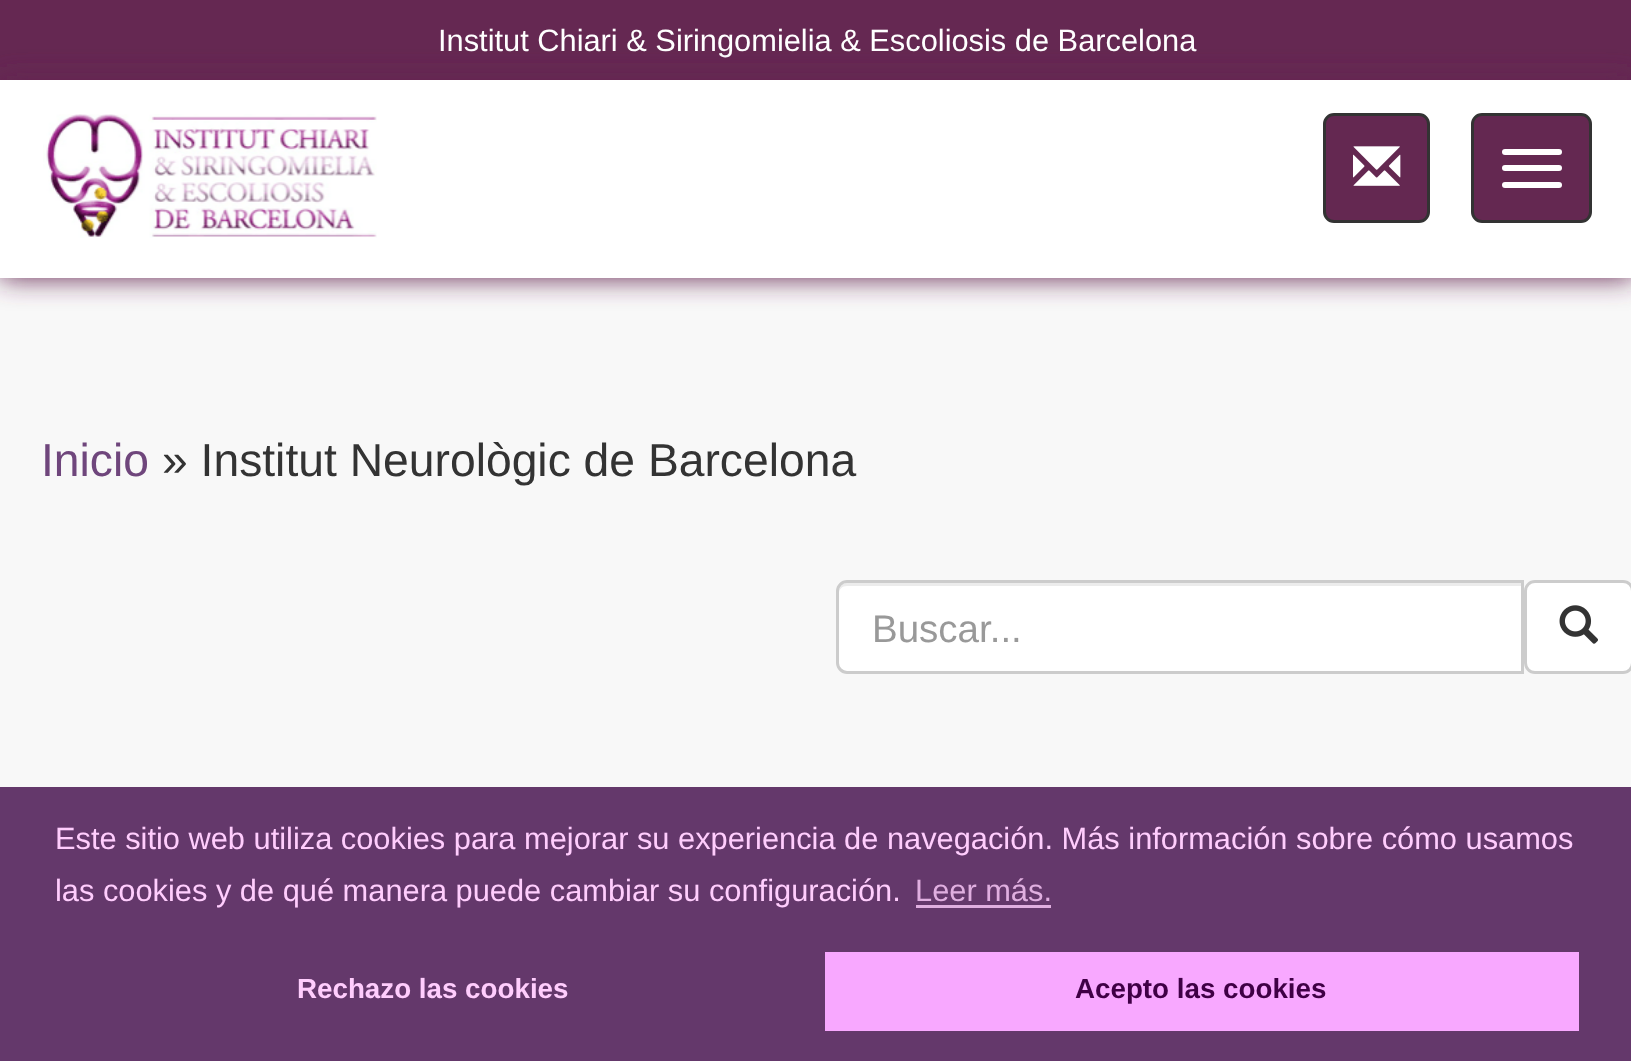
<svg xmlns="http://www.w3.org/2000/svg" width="1631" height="1061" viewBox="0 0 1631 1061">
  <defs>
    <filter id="blur1" x="-50%" y="-200%" width="200%" height="500%"><feGaussianBlur stdDeviation="14"/></filter>
  </defs>
  <rect width="100%" height="100%" fill="#f8f8f8"/>
  <rect x="0" y="0" width="1631" height="80" fill="#652852"/>
  <text x="438" y="51" font-family="Liberation Sans" font-size="30.8" fill="#ffffff">Institut Chiari &amp; Siringomielia &amp; Escoliosis de Barcelona</text>
  <rect x="0" y="80" width="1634" height="198" fill="#642851" filter="url(#blur1)"/>
  <rect x="0" y="80" width="1631" height="198" fill="#ffffff"/>
  <image x="43" y="114" width="334" height="124" href="img1.png"/>
  <rect x="1324.5" y="114.5" width="104" height="107" rx="9.5" fill="#642851" stroke="#333333" stroke-width="3"/>
  <image x="1353" y="146" width="48" height="40" href="img2.png"/>
  <rect x="1472.5" y="114.5" width="118" height="107" rx="9.5" fill="#642851" stroke="#333333" stroke-width="3"/>
  <rect x="1502" y="149" width="60" height="6" rx="3" fill="#ffffff"/>
  <rect x="1502" y="165" width="60" height="6" rx="3" fill="#ffffff"/>
  <rect x="1502" y="182" width="60" height="6" rx="3" fill="#ffffff"/>
  <text x="41" y="476" font-family="Liberation Sans" font-size="46.25" fill="#6f467c">Inicio</text>
  <text x="162" y="476" font-family="Liberation Sans" font-size="46.25" fill="#333333">» Institut Neurològic de Barcelona</text>
  <path d="M847 580H1524V674H847C841 674 836 669 836 663V591C836 585 841 580 847 580Z" fill="#ffffff"/>
  <path d="M847 586H1521V583H847C841 583 839 589 839 594C839 589 842 586 847 586Z" fill="#ececec"/>
  <path d="M847 581.5H1522.5V672.5H847C842 672.5 837.5 668 837.5 663V591C837.5 586 842 581.5 847 581.5Z" fill="none" stroke="#cccccc" stroke-width="3"/>
  <text x="872" y="642" font-family="Liberation Sans" font-size="38.5" fill="#999999">Buscar...</text>
  <rect x="1525.5" y="581.5" width="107" height="91" rx="9.5" fill="#ffffff" stroke="#cccccc" stroke-width="3"/>
  <image x="1559" y="605" width="39" height="39" href="img3.png"/>
  <rect x="0" y="787" width="1631" height="274" fill="#64386b"/>
  <text x="55" y="849" font-family="Liberation Sans" font-size="30.8" fill="#ffcdfd">Este sitio web utiliza cookies para mejorar su experiencia de navegación. Más información sobre cómo usamos</text>
  <text x="55" y="901" font-family="Liberation Sans" font-size="30.8" fill="#ffcdfd">las cookies y de qué manera puede cambiar su configuración.</text>
  <text x="915" y="901" font-family="Liberation Sans" font-size="30.8" fill="#e0afe0">Leer más.</text>
  <rect x="916" y="905" width="135" height="3" fill="#e0afe0"/>
  <text x="297" y="998" font-family="Liberation Sans" font-size="27.75" font-weight="bold" fill="#ffcdfd">Rechazo las cookies</text>
  <rect x="825" y="952" width="754" height="79" fill="#f8a8ff"/>
  <text x="1075" y="998" font-family="Liberation Sans" font-size="27.75" font-weight="bold" fill="#3f0045">Acepto las cookies</text>
</svg>
